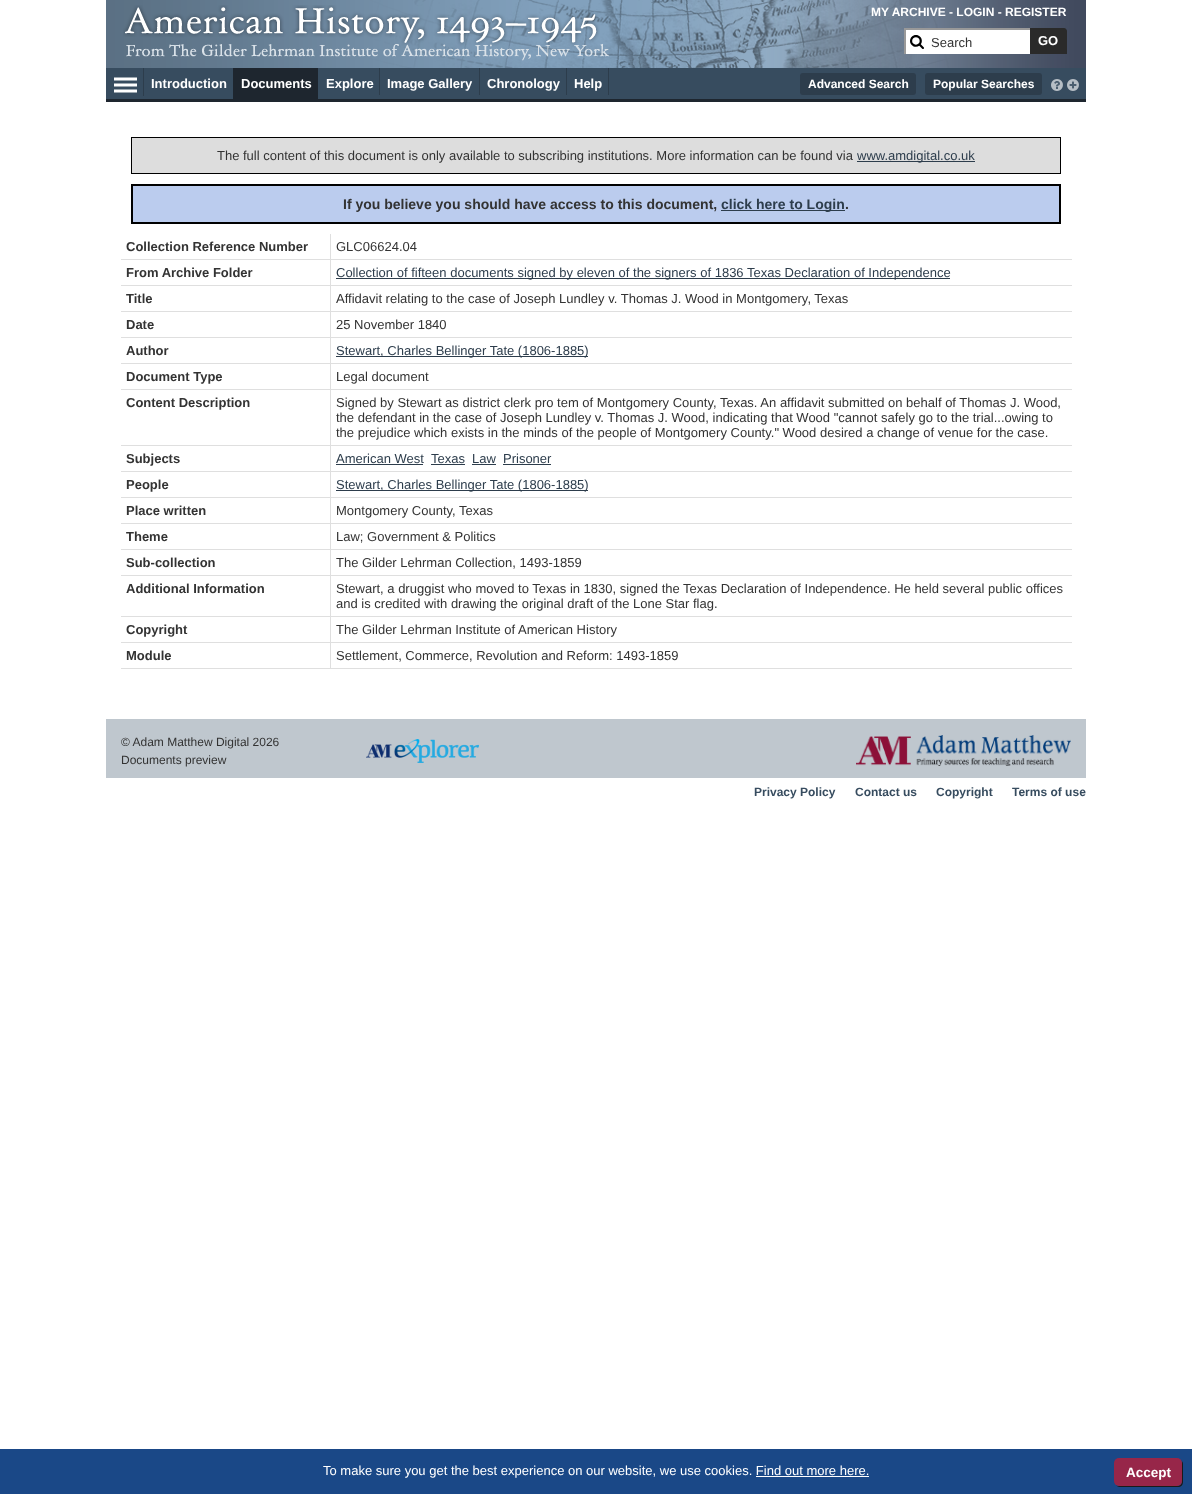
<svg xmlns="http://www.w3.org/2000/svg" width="1192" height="1494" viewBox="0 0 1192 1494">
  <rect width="100%" height="100%" fill="#ffffff"/>
  <image x="106" y="0" width="980" height="68" href="img1.png"/>
  <text x="871" y="16" font-family="Liberation Sans" font-size="12" font-weight="bold" fill="#ffffff">MY ARCHIVE - LOGIN - REGISTER</text>
  <image x="123" y="5" width="486" height="56" href="img2.png"/>
  <rect x="906" y="30" width="124" height="24" fill="#ffffff"/>
  <image x="910" y="35" width="14" height="14" href="img3.png"/>
  <rect x="904" y="28" width="126" height="2" fill="#999999"/>
  <rect x="904" y="28" width="2" height="26" fill="#999999"/>
  <text x="931" y="47" font-family="Liberation Sans" font-size="13" fill="#333333">Search</text>
  <path d="M1030 28H1064C1065.5 28 1067 29.5 1067 31V54H1030Z" fill="#2a2a2a"/>
  <text x="1038" y="45" font-family="Liberation Sans" font-size="13" font-weight="bold" fill="#ffffff">GO</text>
  <rect x="106" y="68" width="980" height="31" fill="#374c5f"/>
  <rect x="106" y="99" width="980" height="3" fill="#1e262f"/>
  <path d="M114 79H137M114 85H137M114 91H137" fill="none" stroke="#ffffff" stroke-width="3"/>
  <rect x="143" y="68" width="1" height="28" fill="#2d3d4c"/>
  <text x="151" y="88" font-family="Liberation Sans" font-size="13" font-weight="bold" fill="#ffffff">Introduction</text>
  <rect x="233" y="68" width="85" height="31" fill="#1e262f"/>
  <text x="241" y="88" font-family="Liberation Sans" font-size="13" font-weight="bold" fill="#ffffff">Documents</text>
  <text x="326" y="88" font-family="Liberation Sans" font-size="13" font-weight="bold" fill="#ffffff">Explore</text>
  <rect x="379" y="68" width="1" height="27" fill="#2d3d4c"/>
  <text x="387" y="88" font-family="Liberation Sans" font-size="13" font-weight="bold" fill="#ffffff">Image Gallery</text>
  <rect x="479" y="68" width="1" height="27" fill="#2d3d4c"/>
  <text x="487" y="88" font-family="Liberation Sans" font-size="13" font-weight="bold" fill="#ffffff">Chronology</text>
  <rect x="566" y="68" width="1" height="27" fill="#2d3d4c"/>
  <text x="574" y="88" font-family="Liberation Sans" font-size="13" font-weight="bold" fill="#ffffff">Help</text>
  <rect x="608" y="68" width="1" height="27" fill="#2d3d4c"/>
  <rect x="800" y="73" width="116" height="22" rx="3" fill="#2d3d4c"/>
  <text x="808" y="88" font-family="Liberation Sans" font-size="12" font-weight="bold" fill="#ffffff">Advanced Search</text>
  <rect x="925" y="73" width="117" height="22" rx="3" fill="#2d3d4c"/>
  <text x="933" y="88" font-family="Liberation Sans" font-size="12" font-weight="bold" fill="#ffffff">Popular Searches</text>
  <image x="1051" y="79" width="12" height="12" href="img4.png"/>
  <image x="1067" y="79" width="12" height="12" href="img5.png"/>
  <rect x="131.5" y="137.5" width="929" height="36" fill="#dddddd" stroke="#000000"/>
  <text x="217" y="160" font-family="Liberation Sans" font-size="13" fill="#333333">The full content of this document is only available to subscribing institutions. More information can be found via</text>
  <rect x="857" y="161" width="118" height="1" fill="#2d3d4c"/>
  <text x="857" y="160" font-family="Liberation Sans" font-size="13" fill="#2d3d4c">www.amdigital.co.uk</text>
  <rect x="132" y="185" width="928" height="38" fill="#bbccee" stroke="#000000" stroke-width="2"/>
  <text x="343" y="209" font-family="Liberation Sans" font-size="14" font-weight="bold" fill="#333333">If you believe you should have access to this document,</text>
  <rect x="721" y="210" width="124" height="1" fill="#2d3d4c"/>
  <text x="721" y="209" font-family="Liberation Sans" font-size="14" font-weight="bold" fill="#2d3d4c">click here to Login</text>
  <text x="845" y="209" font-family="Liberation Sans" font-size="14" font-weight="bold" fill="#333333">.</text>
  <rect x="330" y="668" width="742" height="1" fill="#dfdfdf"/>
  <rect x="330" y="642" width="1" height="27" fill="#dfdfdf"/>
  <rect x="330" y="642" width="742" height="1" fill="#dfdfdf"/>
  <rect x="330" y="616" width="1" height="27" fill="#dfdfdf"/>
  <rect x="330" y="616" width="742" height="1" fill="#dfdfdf"/>
  <rect x="330" y="575" width="1" height="42" fill="#dfdfdf"/>
  <rect x="330" y="575" width="742" height="1" fill="#dfdfdf"/>
  <rect x="330" y="549" width="1" height="27" fill="#dfdfdf"/>
  <rect x="330" y="549" width="742" height="1" fill="#dfdfdf"/>
  <rect x="330" y="523" width="1" height="27" fill="#dfdfdf"/>
  <rect x="330" y="523" width="742" height="1" fill="#dfdfdf"/>
  <rect x="330" y="497" width="1" height="27" fill="#dfdfdf"/>
  <rect x="330" y="497" width="742" height="1" fill="#dfdfdf"/>
  <rect x="330" y="471" width="1" height="27" fill="#dfdfdf"/>
  <rect x="330" y="471" width="742" height="1" fill="#dfdfdf"/>
  <rect x="330" y="445" width="1" height="27" fill="#dfdfdf"/>
  <rect x="330" y="445" width="742" height="1" fill="#dfdfdf"/>
  <rect x="330" y="389" width="1" height="57" fill="#dfdfdf"/>
  <rect x="330" y="389" width="742" height="1" fill="#dfdfdf"/>
  <rect x="330" y="363" width="1" height="27" fill="#dfdfdf"/>
  <rect x="330" y="363" width="742" height="1" fill="#dfdfdf"/>
  <rect x="330" y="337" width="1" height="27" fill="#dfdfdf"/>
  <rect x="330" y="337" width="742" height="1" fill="#dfdfdf"/>
  <rect x="330" y="311" width="1" height="27" fill="#dfdfdf"/>
  <rect x="330" y="311" width="742" height="1" fill="#dfdfdf"/>
  <rect x="330" y="285" width="1" height="27" fill="#dfdfdf"/>
  <rect x="330" y="285" width="742" height="1" fill="#dfdfdf"/>
  <rect x="330" y="259" width="1" height="27" fill="#dfdfdf"/>
  <rect x="330" y="259" width="742" height="1" fill="#dfdfdf"/>
  <rect x="330" y="234" width="1" height="26" fill="#dfdfdf"/>
  <rect x="121" y="259" width="210" height="1" fill="#dfdfdf"/>
  <text x="126" y="251" font-family="Liberation Sans" font-size="13" font-weight="bold" fill="#333333">Collection Reference Number</text>
  <text x="336" y="251" font-family="Liberation Sans" font-size="13" fill="#333333">GLC06624.04</text>
  <rect x="121" y="285" width="210" height="1" fill="#dfdfdf"/>
  <text x="126" y="277" font-family="Liberation Sans" font-size="13" font-weight="bold" fill="#333333">From Archive Folder</text>
  <rect x="336" y="278" width="614" height="1" fill="#2d3d4c"/>
  <text x="336" y="277" font-family="Liberation Sans" font-size="13" fill="#2d3d4c">Collection of fifteen documents signed by eleven of the signers of 1836 Texas Declaration of Independence</text>
  <rect x="121" y="311" width="210" height="1" fill="#dfdfdf"/>
  <text x="126" y="303" font-family="Liberation Sans" font-size="13" font-weight="bold" fill="#333333">Title</text>
  <text x="336" y="303" font-family="Liberation Sans" font-size="13" fill="#333333">Affidavit relating to the case of Joseph Lundley v. Thomas J. Wood in Montgomery, Texas</text>
  <rect x="121" y="337" width="210" height="1" fill="#dfdfdf"/>
  <text x="126" y="329" font-family="Liberation Sans" font-size="13" font-weight="bold" fill="#333333">Date</text>
  <text x="336" y="329" font-family="Liberation Sans" font-size="13" fill="#333333">25 November 1840</text>
  <rect x="121" y="363" width="210" height="1" fill="#dfdfdf"/>
  <text x="126" y="355" font-family="Liberation Sans" font-size="13" font-weight="bold" fill="#333333">Author</text>
  <rect x="336" y="356" width="252" height="1" fill="#2d3d4c"/>
  <text x="336" y="355" font-family="Liberation Sans" font-size="13" fill="#2d3d4c">Stewart, Charles Bellinger Tate (1806-1885)</text>
  <rect x="121" y="389" width="210" height="1" fill="#dfdfdf"/>
  <text x="126" y="381" font-family="Liberation Sans" font-size="13" font-weight="bold" fill="#333333">Document Type</text>
  <text x="336" y="381" font-family="Liberation Sans" font-size="13" fill="#333333">Legal document</text>
  <rect x="121" y="445" width="210" height="1" fill="#dfdfdf"/>
  <text x="126" y="407" font-family="Liberation Sans" font-size="13" font-weight="bold" fill="#333333">Content Description</text>
  <text x="336" y="407" font-family="Liberation Sans" font-size="13" fill="#333333">Signed by Stewart as district clerk pro tem of Montgomery County, Texas. An affidavit submitted on behalf of Thomas J. Wood,</text>
  <text x="336" y="422" font-family="Liberation Sans" font-size="13" fill="#333333">the defendant in the case of Joseph Lundley v. Thomas J. Wood, indicating that Wood "cannot safely go to the trial...owing to</text>
  <text x="336" y="437" font-family="Liberation Sans" font-size="13" fill="#333333">the prejudice which exists in the minds of the people of Montgomery County." Wood desired a change of venue for the case.</text>
  <rect x="121" y="471" width="210" height="1" fill="#dfdfdf"/>
  <text x="126" y="463" font-family="Liberation Sans" font-size="13" font-weight="bold" fill="#333333">Subjects</text>
  <text x="336" y="463" font-family="Liberation Sans" font-size="13" fill="#2d3d4c">American West</text>
  <rect x="336" y="464" width="87" height="1" fill="#2d3d4c"/>
  <text x="431" y="463" font-family="Liberation Sans" font-size="13" fill="#2d3d4c">Texas</text>
  <rect x="431" y="464" width="34" height="1" fill="#2d3d4c"/>
  <text x="472" y="463" font-family="Liberation Sans" font-size="13" fill="#2d3d4c">Law</text>
  <rect x="472" y="464" width="24" height="1" fill="#2d3d4c"/>
  <text x="503" y="463" font-family="Liberation Sans" font-size="13" fill="#2d3d4c">Prisoner</text>
  <rect x="503" y="464" width="48" height="1" fill="#2d3d4c"/>
  <rect x="121" y="497" width="210" height="1" fill="#dfdfdf"/>
  <text x="126" y="489" font-family="Liberation Sans" font-size="13" font-weight="bold" fill="#333333">People</text>
  <rect x="336" y="490" width="252" height="1" fill="#2d3d4c"/>
  <text x="336" y="489" font-family="Liberation Sans" font-size="13" fill="#2d3d4c">Stewart, Charles Bellinger Tate (1806-1885)</text>
  <rect x="121" y="523" width="210" height="1" fill="#dfdfdf"/>
  <text x="126" y="515" font-family="Liberation Sans" font-size="13" font-weight="bold" fill="#333333">Place written</text>
  <text x="336" y="515" font-family="Liberation Sans" font-size="13" fill="#333333">Montgomery County, Texas</text>
  <rect x="121" y="549" width="210" height="1" fill="#dfdfdf"/>
  <text x="126" y="541" font-family="Liberation Sans" font-size="13" font-weight="bold" fill="#333333">Theme</text>
  <text x="336" y="541" font-family="Liberation Sans" font-size="13" fill="#333333">Law; Government &amp; Politics</text>
  <rect x="121" y="575" width="210" height="1" fill="#dfdfdf"/>
  <text x="126" y="567" font-family="Liberation Sans" font-size="13" font-weight="bold" fill="#333333">Sub-collection</text>
  <text x="336" y="567" font-family="Liberation Sans" font-size="13" fill="#333333">The Gilder Lehrman Collection, 1493-1859</text>
  <rect x="121" y="616" width="210" height="1" fill="#dfdfdf"/>
  <text x="126" y="593" font-family="Liberation Sans" font-size="13" font-weight="bold" fill="#333333">Additional Information</text>
  <text x="336" y="593" font-family="Liberation Sans" font-size="13" fill="#333333">Stewart, a druggist who moved to Texas in 1830, signed the Texas Declaration of Independence. He held several public offices</text>
  <text x="336" y="608" font-family="Liberation Sans" font-size="13" fill="#333333">and is credited with drawing the original draft of the Lone Star flag.</text>
  <rect x="121" y="642" width="210" height="1" fill="#dfdfdf"/>
  <text x="126" y="634" font-family="Liberation Sans" font-size="13" font-weight="bold" fill="#333333">Copyright</text>
  <text x="336" y="634" font-family="Liberation Sans" font-size="13" fill="#333333">The Gilder Lehrman Institute of American History</text>
  <rect x="121" y="668" width="210" height="1" fill="#dfdfdf"/>
  <text x="126" y="660" font-family="Liberation Sans" font-size="13" font-weight="bold" fill="#333333">Module</text>
  <text x="336" y="660" font-family="Liberation Sans" font-size="13" fill="#333333">Settlement, Commerce, Revolution and Reform: 1493-1859</text>
  <rect x="106" y="719" width="980" height="59" fill="#bfc7ce"/>
  <text x="121" y="746" font-family="Liberation Sans" font-size="12" fill="#333333">© Adam Matthew Digital 2026</text>
  <text x="121" y="764" font-family="Liberation Sans" font-size="12" fill="#333333">Documents preview</text>
  <image x="366" y="739" width="113" height="24" href="img6.png"/>
  <image x="856" y="735" width="215" height="31" href="img7.png"/>
  <text x="754" y="796" font-family="Liberation Sans" font-size="12" font-weight="bold" fill="#374c5f">Privacy Policy</text>
  <text x="855" y="796" font-family="Liberation Sans" font-size="12" font-weight="bold" fill="#374c5f">Contact us</text>
  <text x="936" y="796" font-family="Liberation Sans" font-size="12" font-weight="bold" fill="#374c5f">Copyright</text>
  <text x="1012" y="796" font-family="Liberation Sans" font-size="12" font-weight="bold" fill="#374c5f">Terms of use</text>
  <rect x="0" y="1449" width="1192" height="45" fill="#1a4887"/>
  <text x="323" y="1475" font-family="Liberation Sans" font-size="13" fill="#ffffff">To make sure you get the best experience on our website, we use cookies. Find out more here.</text>
  <rect x="756" y="1476" width="113" height="1" fill="#ffffff"/>
  <path d="M1116 1485C1117 1486 1118 1487 1120 1487H1178C1181 1487 1183 1485 1183 1482V1464C1183 1462 1182 1461 1181 1460C1182 1461 1182 1462 1182 1463V1481C1182 1484 1180 1486 1177 1486H1119C1118 1486 1117 1486 1116 1485Z" fill="#1a1a1a"/>
  <rect x="1114" y="1458" width="68" height="28" rx="5" fill="#972649"/>
  <text x="1126" y="1477" font-family="Liberation Sans" font-size="13.5" font-weight="bold" fill="#ffffff">Accept</text>
</svg>
